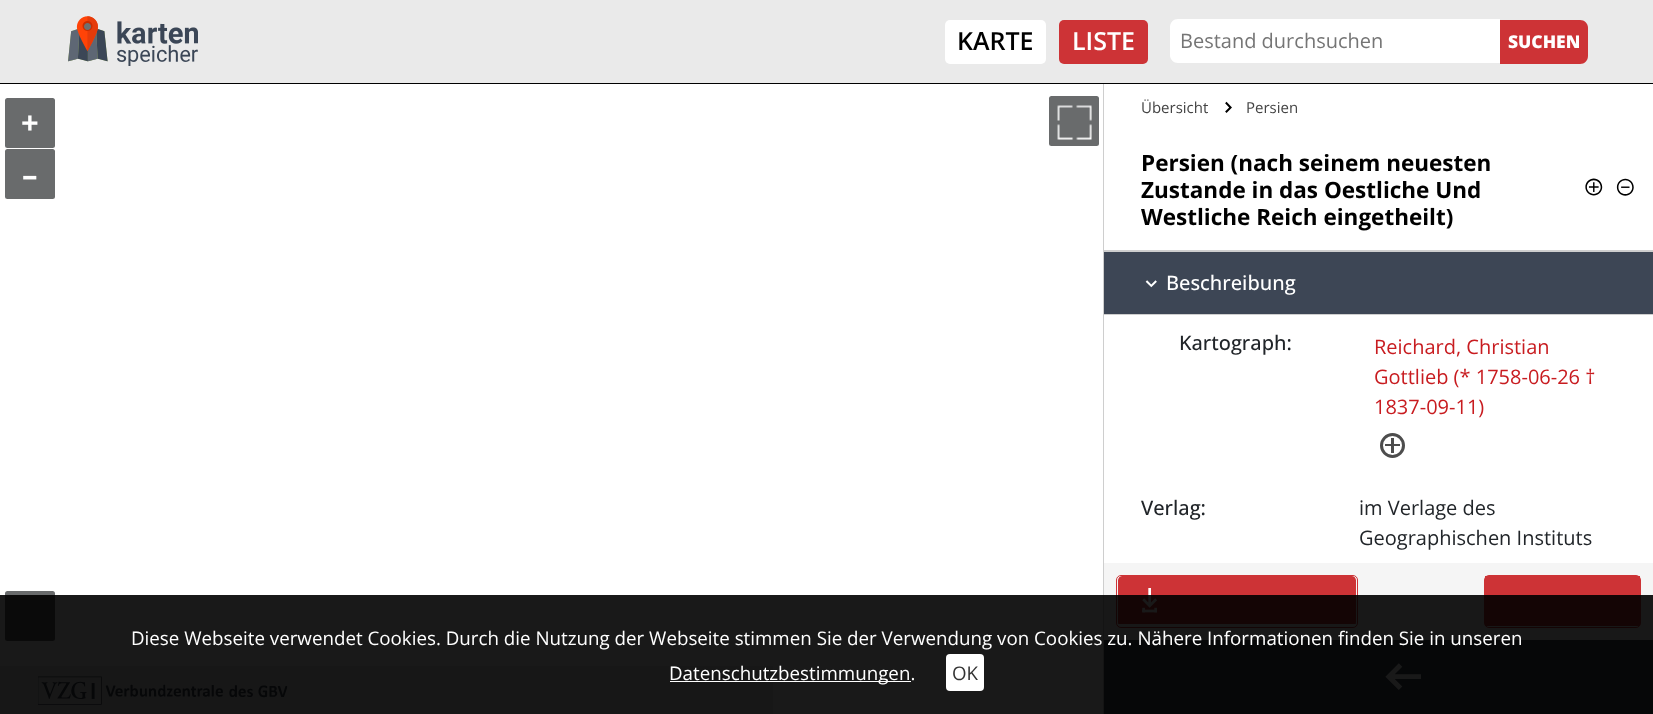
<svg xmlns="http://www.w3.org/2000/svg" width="1653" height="714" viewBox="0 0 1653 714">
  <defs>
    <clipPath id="clip1"><rect x="1118" y="576" width="238" height="50" rx="4"/></clipPath>
  </defs>
  <rect width="100%" height="100%" fill="#ffffff"/>
  <rect x="0" y="0" width="1653" height="83" fill="#eaeaea"/>
  <rect x="0" y="83" width="1653" height="1" fill="#000000"/>
  <image x="68" y="16" width="130" height="50" href="img1.png"/>
  <rect x="945" y="20" width="101" height="44" rx="5" fill="#ffffff"/>
  <text x="957" y="50" font-family="Open Sans" font-size="25" font-weight="600" fill="#000000">KARTE</text>
  <rect x="1059" y="20" width="89" height="44" rx="5" fill="#cd3336"/>
  <text x="1072" y="50" font-family="Open Sans" font-size="25" font-weight="600" fill="#ffffff">LISTE</text>
  <path d="M1178 19H1500V63H1178C1173.5 63 1170 59.5 1170 55V27C1170 22.5 1173.5 19 1178 19Z" fill="#ffffff"/>
  <text x="1180" y="48" font-family="Open Sans" font-size="20" fill="#757575">Bestand durchsuchen</text>
  <path d="M1500 20H1580C1584.5 20 1588 23.5 1588 28V56C1588 60.5 1584.5 64 1580 64H1500Z" fill="#cd3336"/>
  <text x="1508" y="48" font-family="Open Sans" font-size="17.5" font-weight="800" fill="#ffffff">SUCHEN</text>
  <rect x="5" y="98" width="50" height="50" rx="2.5" fill="#696b6c"/>
  <text x="21" y="134" font-family="Open Sans" font-size="31" font-weight="bold" fill="#ffffff">+</text>
  <rect x="5" y="149" width="50" height="50" rx="2.5" fill="#696b6c"/>
  <text x="22" y="186" font-family="Open Sans" font-size="31" font-weight="bold" fill="#ffffff">–</text>
  <rect x="5" y="591" width="50" height="50" rx="2.5" fill="#696b6c"/>
  <rect x="1049" y="96" width="50" height="50" rx="2.5" fill="#696b6c"/>
  <image x="1057" y="105" width="35" height="35" href="img2.png"/>
  <rect x="1104" y="563" width="549" height="77" fill="#f5f5f5"/>
  <rect x="1103" y="84" width="1" height="630" fill="#cecece"/>
  <text x="1141" y="113" font-family="Open Sans" font-size="15" fill="#444444">Übersicht</text>
  <image x="1225" y="101" width="7" height="12" href="img3.png"/>
  <text x="1246" y="113" font-family="Open Sans" font-size="15" fill="#444444">Persien</text>
  <rect x="1104" y="250" width="549" height="2" fill="#cecece"/>
  <text x="1141" y="171" font-family="Open Sans" font-size="22.5" font-weight="bold" fill="#000000">Persien (nach seinem neuesten</text>
  <text x="1141" y="198" font-family="Open Sans" font-size="22.5" font-weight="bold" fill="#000000">Zustande in das Oestliche Und</text>
  <image x="1585" y="178" width="18" height="18" href="img4.png"/>
  <image x="1616" y="178" width="18" height="18" href="img5.png"/>
  <text x="1141" y="225" font-family="Open Sans" font-size="22.5" font-weight="bold" fill="#000000">Westliche Reich eingetheilt)</text>
  <rect x="1104" y="252" width="549" height="62" fill="#3d4655"/>
  <rect x="1104" y="314" width="549" height="1" fill="#cecece"/>
  <image x="1145" y="280" width="12" height="8" href="img6.png"/>
  <text x="1166" y="290" font-family="Open Sans" font-size="20" font-weight="500" fill="#ffffff">Beschreibung</text>
  <text x="1179" y="350" font-family="Open Sans" font-size="20" font-weight="500" fill="#212529">Kartograph:</text>
  <text x="1374" y="354" font-family="Open Sans" font-size="20" fill="#c81c20">Reichard, Christian</text>
  <text x="1374" y="384" font-family="Open Sans" font-size="20" fill="#c81c20">Gottlieb (* 1758-06-26 †</text>
  <text x="1374" y="414" font-family="Open Sans" font-size="20" fill="#c81c20">1837-09-11)</text>
  <circle cx="1392.5" cy="445.5" r="11" fill="none" stroke="#4d4d4d" stroke-width="3"/>
  <rect x="1391" y="438" width="3" height="15" fill="#4d4d4d"/>
  <rect x="1385" y="444" width="15" height="2" fill="#4d4d4d"/>
  <text x="1141" y="515" font-family="Open Sans" font-size="20" font-weight="500" fill="#212529">Verlag:</text>
  <text x="1359" y="515" font-family="Open Sans" font-size="20" fill="#212529">im Verlage des</text>
  <text x="1359" y="545" font-family="Open Sans" font-size="20" fill="#212529">Geographischen Instituts</text>
  <rect x="1116.5" y="575.5" width="241" height="52" rx="4.5" fill="none" stroke="#cd3336"/>
  <g clip-path="url(#clip1)">
    <path d="M1122 576H1352C1354 576 1356 578 1356 580V624H1118V580C1118 578 1120 576 1122 576Z" fill="#cd3336"/>
  </g>
  <image x="1142" y="588" width="16" height="25" href="img7.png"/>
  <rect x="1484.5" y="575.5" width="156" height="52" rx="4.5" fill="none" stroke="#cd3336"/>
  <rect x="1485" y="576" width="155" height="50" fill="#cd3336"/>
  <rect x="1104" y="640" width="549" height="74" fill="#3d4655"/>
  <image x="1385" y="663" width="36" height="27" href="img8.png"/>
  <rect x="0" y="666" width="773" height="48" fill="#eaeaea"/>
  <image x="38" y="676" width="250" height="29" href="img9.png"/>
  <rect x="0" y="595" width="1653" height="119" fill="#000000" fill-opacity="0.9"/>
  <text x="131" y="645" font-family="Open Sans" font-size="18.75" fill="#ffffff">Diese Webseite verwendet Cookies. Durch die Nutzung der Webseite stimmen Sie der Verwendung von Cookies zu. Nähere Informationen finden Sie in unseren</text>
  <rect x="670" y="681" width="241" height="1" fill="#ffffff"/>
  <text x="669" y="680" font-family="Open Sans" font-size="18.75" fill="#ffffff">Datenschutzbestimmungen.</text>
  <rect x="946" y="654" width="38" height="37" rx="4" fill="#ffffff"/>
  <text x="952" y="680" font-family="Open Sans" font-size="18.75" fill="#333333">OK</text>
</svg>
